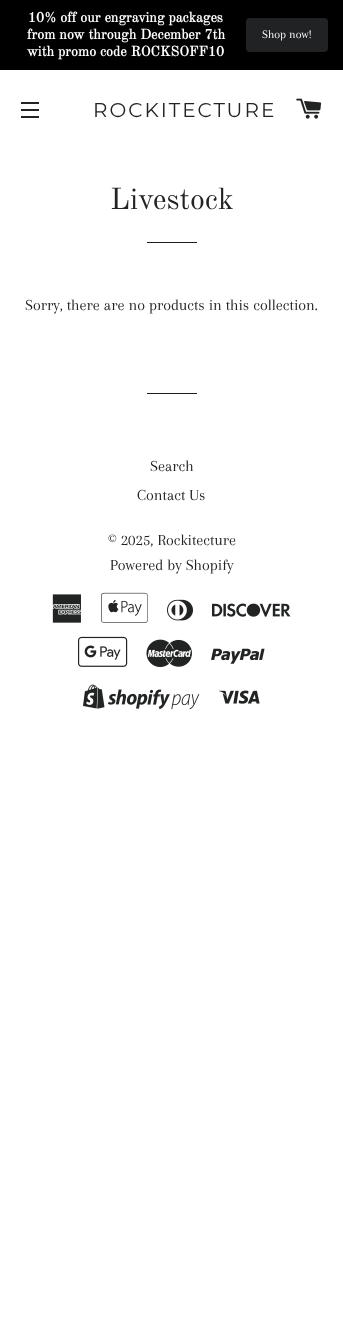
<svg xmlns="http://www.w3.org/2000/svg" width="343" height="1340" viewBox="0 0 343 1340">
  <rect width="100%" height="100%" fill="#ffffff"/>
  <rect x="0" y="0" width="343" height="70" fill="#000000"/>
  <text x="28" y="22" font-family="Old Standard TT" font-size="14" font-weight="bold" fill="#ffffff">10% off our engraving packages</text>
  <text x="27" y="39" font-family="Old Standard TT" font-size="14" font-weight="bold" fill="#ffffff">from now through December 7th</text>
  <text x="27" y="56" font-family="Old Standard TT" font-size="14" font-weight="bold" fill="#ffffff">with promo code ROCKSOFF10</text>
  <rect x="246" y="18" width="82" height="34" rx="4" fill="#202223"/>
  <text x="262" y="38" font-family="Arapey" font-size="12" fill="#ffffff">Shop now!</text>
  <rect x="21" y="102" width="18" height="2" fill="#222323"/>
  <rect x="21" y="109" width="18" height="2" fill="#222323"/>
  <rect x="21" y="116" width="18" height="2" fill="#222323"/>
  <text x="93" y="117" font-family="Montserrat" font-size="20" font-weight="100" letter-spacing="2" fill="#222323">ROCKITECTURE</text>
  <image x="296" y="98" width="26" height="21" href="img1.png"/>
  <text x="110" y="209" font-family="Old Standard TT" font-size="30" fill="#222323">Livestock</text>
  <rect x="147" y="242" width="50" height="1" fill="#1c1d1d"/>
  <text x="25" y="310" font-family="Arapey" font-size="16" fill="#222323">Sorry, there are no products in this collection.</text>
  <rect x="147" y="393" width="50" height="1" fill="#1c1d1d"/>
  <text x="150" y="471" font-family="Arapey" font-size="16" fill="#222323">Search</text>
  <text x="137" y="500" font-family="Arapey" font-size="16" fill="#222323">Contact Us</text>
  <text x="108" y="545" font-family="Arapey" font-size="16" fill="#222323">© 2025, Rockitecture</text>
  <text x="110" y="570" font-family="Arapey" font-size="16" fill="#222323">Powered by Shopify</text>
  <image x="52" y="594" width="30" height="29" href="img2.png"/>
  <image x="101" y="592" width="47" height="31" href="img3.png"/>
  <image x="167" y="599" width="26" height="22" href="img4.png"/>
  <image x="212" y="603" width="79" height="14" href="img5.png"/>
  <image x="78" y="636" width="50" height="31" href="img6.png"/>
  <image x="146" y="639" width="46" height="29" href="img7.png"/>
  <image x="211" y="648" width="54" height="16" href="img8.png"/>
  <image x="83" y="684" width="117" height="26" href="img9.png"/>
  <image x="219" y="690" width="41" height="14" href="img10.png"/>
</svg>
